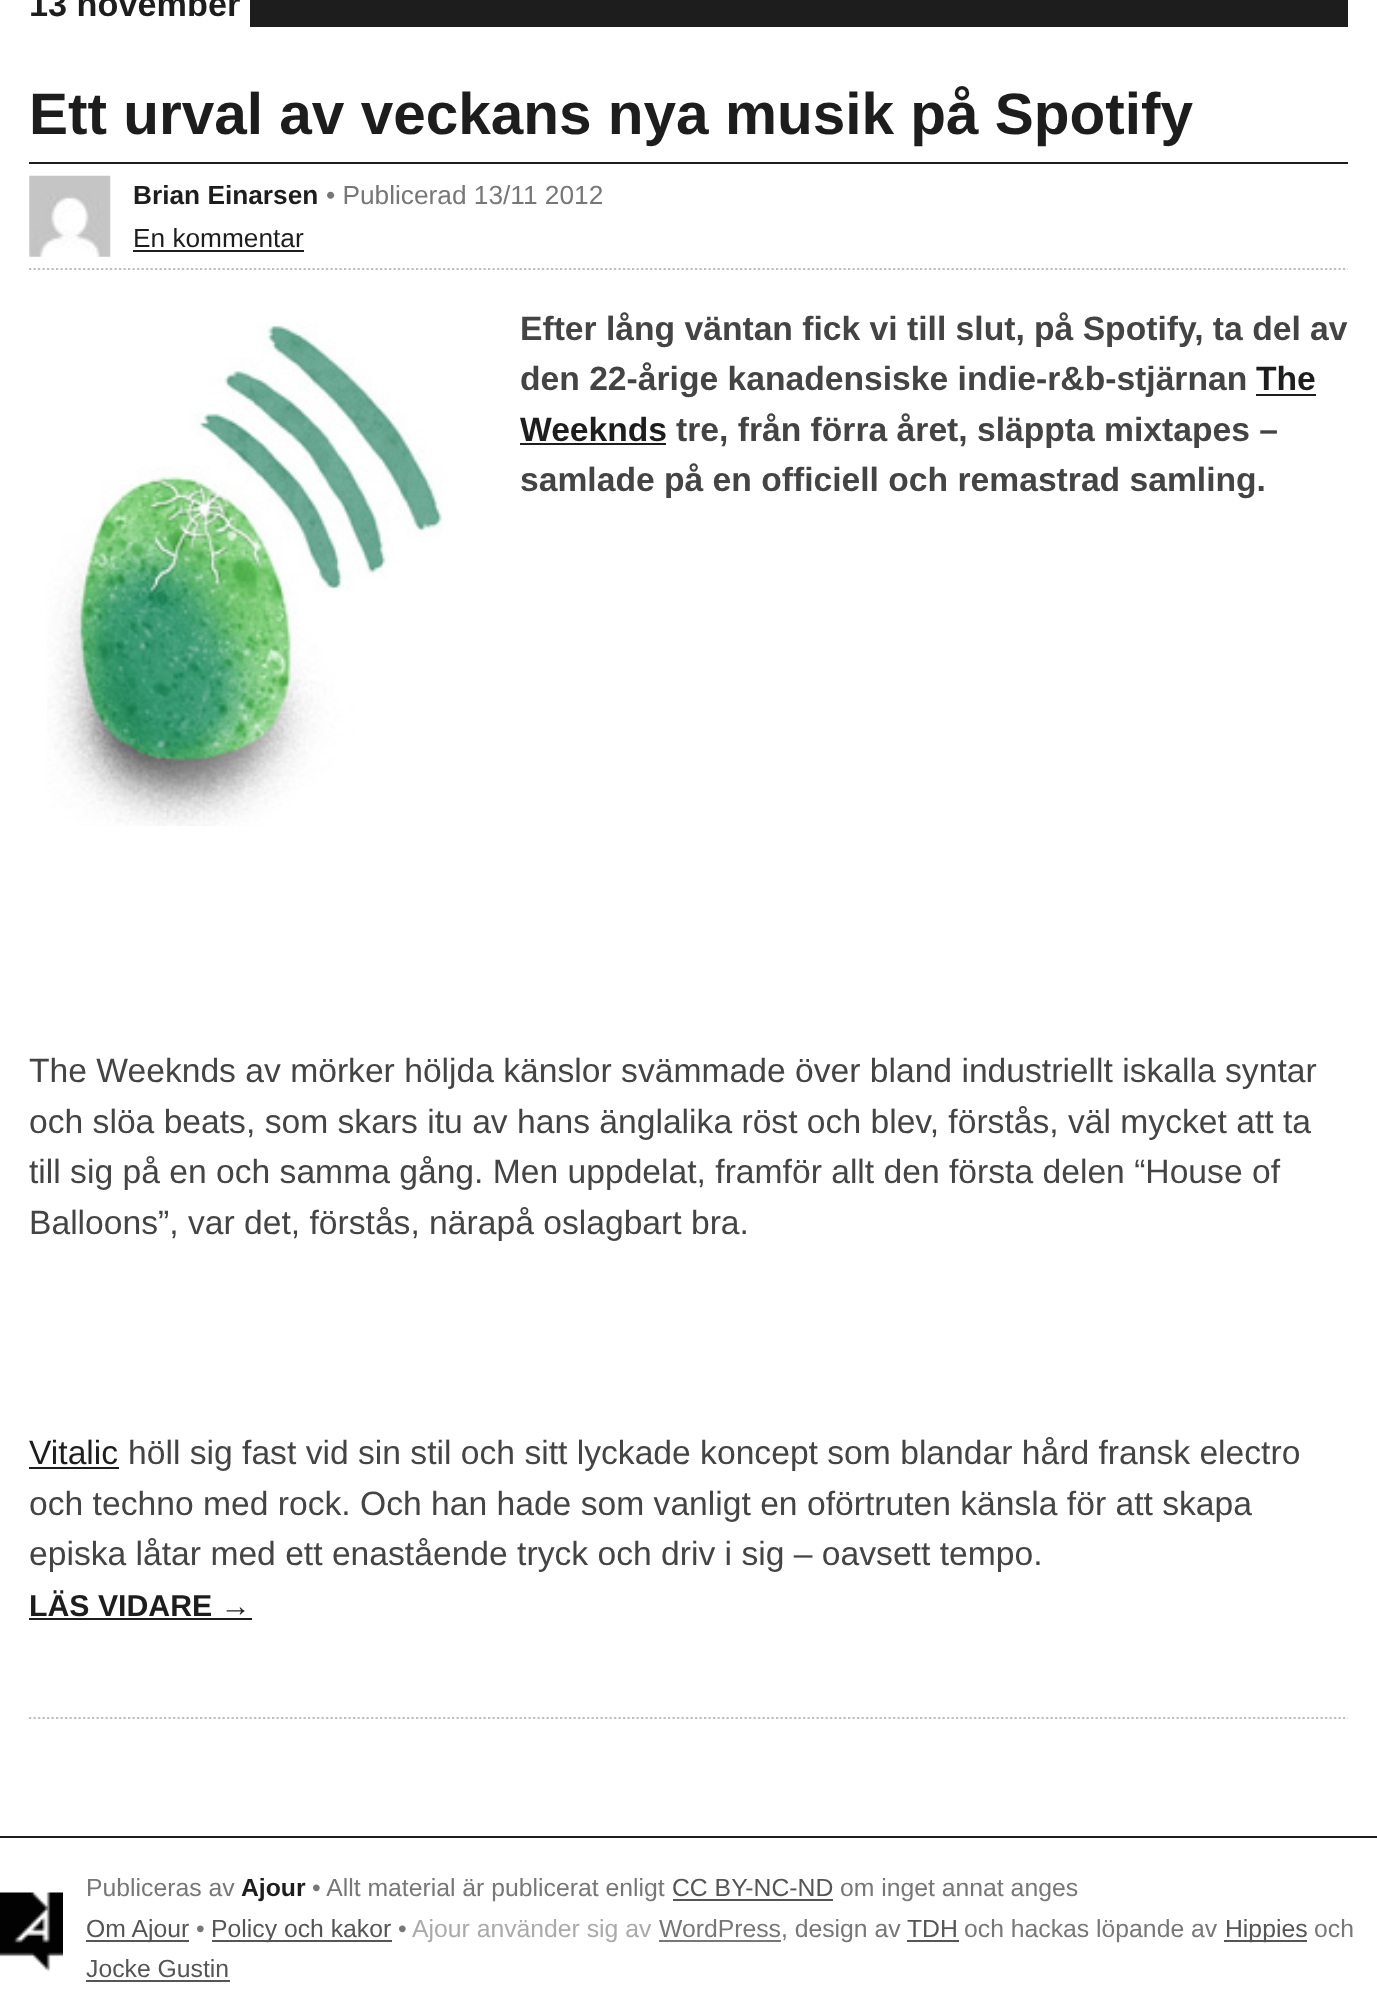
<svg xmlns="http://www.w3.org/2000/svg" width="1377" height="1997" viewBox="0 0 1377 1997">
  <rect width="100%" height="100%" fill="#ffffff"/>
  <rect x="250" y="0" width="1098" height="27" fill="#1d1d1d"/>
  <text x="29" y="16" font-family="Liberation Sans" font-size="34.25" font-weight="bold" fill="#1d1d1d">13 november</text>
  <path d="M29 1718H1348" fill="none" stroke="#bfbfbf" stroke-width="2.2" stroke-dasharray="2.25 2.25"/>
  <rect x="29" y="162" width="1319" height="2" fill="#1d1d1d"/>
  <text x="29" y="134" font-family="Liberation Sans" font-size="58.5" font-weight="bold" fill="#1d1d1d">Ett urval av veckans nya musik på Spotify</text>
  <path d="M29 269H1348" fill="none" stroke="#bfbfbf" stroke-width="2.2" stroke-dasharray="2.25 2.25"/>
  <image x="29" y="175" width="82" height="82" href="img1.png"/>
  <text x="133" y="204" font-family="Liberation Sans" font-size="26.25" font-weight="bold" fill="#1d1d1d">Brian Einarsen</text>
  <text x="326" y="204" font-family="Liberation Sans" font-size="26.25" fill="#777777">• Publicerad 13/11 2012</text>
  <text x="133" y="247" font-family="Liberation Sans" font-size="26.25" fill="#1d1d1d">En kommentar</text>
  <rect x="133" y="250" width="171" height="2" fill="#1d1d1d"/>
  <image x="47" y="322" width="396" height="504" href="img2.png"/>
  <text x="520" y="340" font-family="Liberation Sans" font-size="33.65" font-weight="bold" fill="#444444">Efter lång väntan fick vi till slut, på Spotify, ta del av</text>
  <text x="520" y="390" font-family="Liberation Sans" font-size="33.65" font-weight="bold" fill="#444444">den 22-årige kanadensiske indie-r&amp;b-stjärnan</text>
  <text x="1256" y="390" font-family="Liberation Sans" font-size="33.65" font-weight="bold" fill="#1d1d1d">The</text>
  <rect x="1256" y="394" width="60" height="2" fill="#1d1d1d"/>
  <text x="520" y="441" font-family="Liberation Sans" font-size="33.65" font-weight="bold" fill="#1d1d1d">Weeknds</text>
  <rect x="520" y="443" width="146" height="2" fill="#1d1d1d"/>
  <text x="676" y="441" font-family="Liberation Sans" font-size="33.65" font-weight="bold" fill="#444444">tre, från förra året, släppta mixtapes –</text>
  <text x="520" y="491" font-family="Liberation Sans" font-size="33.65" font-weight="bold" fill="#444444">samlade på en officiell och remastrad samling.</text>
  <text x="29" y="1082" font-family="Liberation Sans" font-size="33.65" fill="#444444">The Weeknds av mörker höljda känslor svämmade över bland industriellt iskalla syntar</text>
  <text x="29" y="1133" font-family="Liberation Sans" font-size="33.65" fill="#444444">och slöa beats, som skars itu av hans änglalika röst och blev, förstås, väl mycket att ta</text>
  <text x="29" y="1183" font-family="Liberation Sans" font-size="33.65" fill="#444444">till sig på en och samma gång. Men uppdelat, framför allt den första delen “House of</text>
  <text x="29" y="1234" font-family="Liberation Sans" font-size="33.65" fill="#444444">Balloons”, var det, förstås, närapå oslagbart bra.</text>
  <text x="29" y="1464" font-family="Liberation Sans" font-size="33.65" fill="#1d1d1d">Vitalic</text>
  <rect x="29" y="1467" width="90" height="2" fill="#1d1d1d"/>
  <text x="128" y="1464" font-family="Liberation Sans" font-size="33.65" fill="#444444">höll sig fast vid sin stil och sitt lyckade koncept som blandar hård fransk electro</text>
  <text x="29" y="1515" font-family="Liberation Sans" font-size="33.65" fill="#444444">och techno med rock. Och han hade som vanligt en oförtruten känsla för att skapa</text>
  <text x="29" y="1565" font-family="Liberation Sans" font-size="33.65" fill="#444444">episka låtar med ett enastående tryck och driv i sig – oavsett tempo.</text>
  <text x="29" y="1616" font-family="Liberation Sans" font-size="30.25" font-weight="bold" fill="#1d1d1d">LÄS VIDARE →</text>
  <rect x="29" y="1618" width="223" height="2" fill="#1d1d1d"/>
  <rect x="0" y="1836" width="1377" height="2" fill="#1d1d1d"/>
  <image x="0" y="1892" width="63" height="80" href="img3.png"/>
  <text x="86" y="1896" font-family="Liberation Sans" font-size="24.75" fill="#777777">Publiceras av</text>
  <text x="241" y="1896" font-family="Liberation Sans" font-size="24.75" font-weight="bold" fill="#1d1d1d">Ajour</text>
  <text x="312" y="1896" font-family="Liberation Sans" font-size="24.75" fill="#777777">• Allt material är publicerat enligt</text>
  <text x="672" y="1896" font-family="Liberation Sans" font-size="24.75" fill="#555555">CC BY-NC-ND</text>
  <rect x="673" y="1899" width="160" height="2" fill="#555555"/>
  <text x="840" y="1896" font-family="Liberation Sans" font-size="24.75" fill="#777777">om inget annat anges</text>
  <rect x="86" y="1940" width="103" height="2" fill="#555555"/>
  <text x="86" y="1937" font-family="Liberation Sans" font-size="24.75" fill="#555555">Om Ajour</text>
  <text x="196" y="1937" font-family="Liberation Sans" font-size="24.75" fill="#777777">•</text>
  <rect x="212" y="1940" width="180" height="2" fill="#555555"/>
  <text x="211" y="1937" font-family="Liberation Sans" font-size="24.75" fill="#555555">Policy och kakor</text>
  <text x="398" y="1937" font-family="Liberation Sans" font-size="24.75" fill="#777777">•</text>
  <text x="412" y="1937" font-family="Liberation Sans" font-size="24.75" fill="#aaaaaa">Ajour använder sig av</text>
  <rect x="659" y="1940" width="122" height="2" fill="#777777"/>
  <text x="659" y="1937" font-family="Liberation Sans" font-size="24.75" fill="#777777">WordPress, design av</text>
  <text x="907" y="1937" font-family="Liberation Sans" font-size="24.75" fill="#555555">TDH</text>
  <rect x="907" y="1940" width="52" height="2" fill="#555555"/>
  <text x="964" y="1937" font-family="Liberation Sans" font-size="24.75" fill="#777777">och hackas löpande av</text>
  <rect x="1224" y="1940" width="83" height="2" fill="#555555"/>
  <text x="1225" y="1937" font-family="Liberation Sans" font-size="24.75" fill="#555555">Hippies</text>
  <text x="1314" y="1937" font-family="Liberation Sans" font-size="24.75" fill="#777777">och</text>
  <text x="86" y="1977" font-family="Liberation Sans" font-size="24.75" fill="#555555">Jocke Gustin</text>
  <rect x="86" y="1980" width="144" height="2" fill="#555555"/>
</svg>
